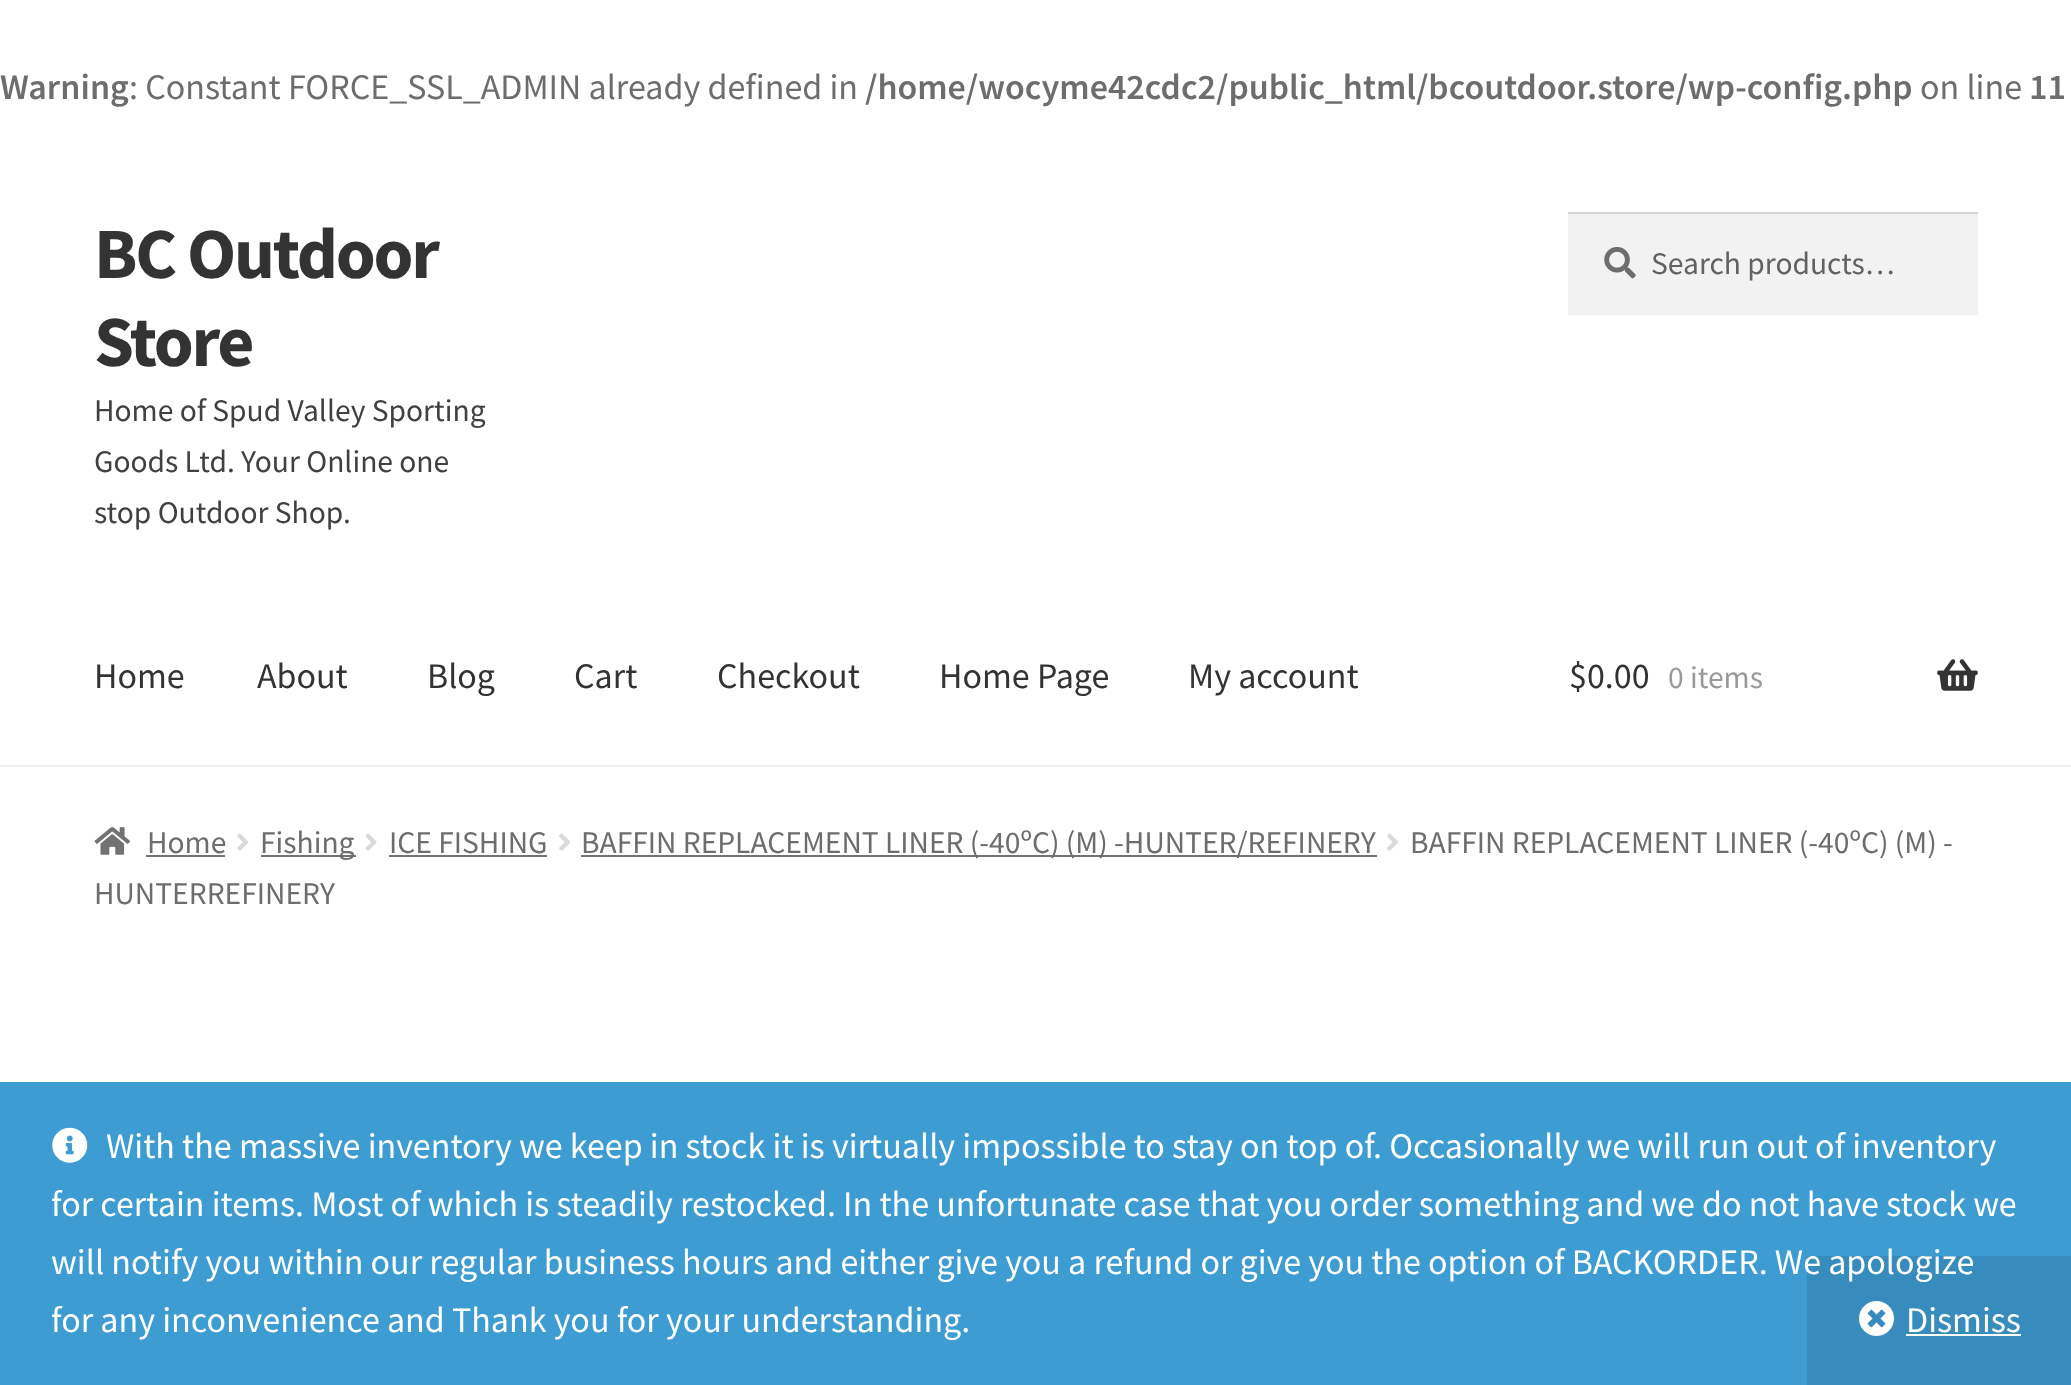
<svg xmlns="http://www.w3.org/2000/svg" width="2071" height="1385" viewBox="0 0 2071 1385">
  <rect width="100%" height="100%" fill="#ffffff"/>
  <text x="0" y="99" font-family="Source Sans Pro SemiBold" font-size="36" font-weight="600" fill="#6d6d6d">Warning</text>
  <text x="129" y="99" font-family="Source Sans Pro" font-size="36" fill="#6d6d6d">: Constant FORCE_SSL_ADMIN already defined in</text>
  <text x="865" y="99" font-family="Source Sans Pro SemiBold" font-size="36" font-weight="600" fill="#6d6d6d">/home/wocyme42cdc2/public_html/bcoutdoor.store/wp-config.php</text>
  <text x="1920" y="99" font-family="Source Sans Pro" font-size="36" fill="#6d6d6d">on line</text>
  <text x="2029" y="99" font-family="Source Sans Pro SemiBold" font-size="36" font-weight="600" fill="#6d6d6d">11</text>
  <rect x="0" y="765" width="2071" height="2" fill="#f0f0f0"/>
  <text x="94" y="278" font-family="Source Sans Pro" font-size="72" font-weight="bold" letter-spacing="-2.25" fill="#333333">BC Outdoor</text>
  <text x="94" y="366" font-family="Source Sans Pro" font-size="72" font-weight="bold" letter-spacing="-2.25" fill="#333333">Store</text>
  <text x="94" y="421" font-family="Source Sans Pro" font-size="31.5" fill="#404040">Home of Spud Valley Sporting</text>
  <text x="94" y="472" font-family="Source Sans Pro" font-size="31.5" fill="#404040">Goods Ltd. Your Online one</text>
  <text x="94" y="523" font-family="Source Sans Pro" font-size="31.5" fill="#404040">stop Outdoor Shop.</text>
  <rect x="1568" y="214" width="410" height="101" fill="#f2f2f2"/>
  <image x="1604" y="247" width="32" height="32" href="img1.png"/>
  <rect x="1568" y="212" width="410" height="2" fill="#d4d4d4"/>
  <text x="1651" y="274" font-family="Source Sans Pro" font-size="31.5" fill="#616161">Search products…</text>
  <text x="94" y="688" font-family="Source Sans Pro" font-size="36" fill="#333333">Home</text>
  <text x="257" y="688" font-family="Source Sans Pro" font-size="36" fill="#333333">About</text>
  <text x="427" y="688" font-family="Source Sans Pro" font-size="36" fill="#333333">Blog</text>
  <text x="574" y="688" font-family="Source Sans Pro" font-size="36" fill="#333333">Cart</text>
  <text x="717" y="688" font-family="Source Sans Pro" font-size="36" fill="#333333">Checkout</text>
  <text x="939" y="688" font-family="Source Sans Pro" font-size="36" fill="#333333">Home Page</text>
  <text x="1188" y="688" font-family="Source Sans Pro" font-size="36" fill="#333333">My account</text>
  <text x="1569" y="688" font-family="Source Sans Pro" font-size="36" fill="#333333">$0.00</text>
  <text x="1668" y="688" font-family="Source Sans Pro" font-size="31.5" fill="#999999">0 items</text>
  <image x="1937" y="659" width="41" height="32" href="img2.png"/>
  <image x="94" y="827" width="36" height="28" href="img3.png"/>
  <text x="147" y="853" font-family="Source Sans Pro" font-size="31.5" fill="#6d6d6d">Home</text>
  <rect x="146" y="855" width="79" height="2" fill="#727272"/>
  <image x="237" y="833" width="12" height="18" href="img4.png"/>
  <rect x="261" y="855" width="95" height="2" fill="#727272"/>
  <text x="260" y="853" font-family="Source Sans Pro" font-size="31.5" fill="#6d6d6d">Fishing</text>
  <image x="365" y="833" width="12" height="18" href="img5.png"/>
  <text x="389" y="853" font-family="Source Sans Pro" font-size="31.5" fill="#6d6d6d">ICE FISHING</text>
  <rect x="389" y="855" width="158" height="2" fill="#727272"/>
  <image x="559" y="833" width="11" height="18" href="img6.png"/>
  <rect x="581" y="855" width="796" height="2" fill="#727272"/>
  <text x="581" y="853" font-family="Source Sans Pro" font-size="31.5" fill="#6d6d6d">BAFFIN REPLACEMENT LINER (-40ºC) (M) -HUNTER/REFINERY</text>
  <image x="1387" y="833" width="11" height="18" href="img6.png"/>
  <text x="1410" y="853" font-family="Source Sans Pro" font-size="31.5" fill="#6d6d6d">BAFFIN REPLACEMENT LINER (-40ºC) (M) -</text>
  <text x="94" y="904" font-family="Source Sans Pro" font-size="31.5" fill="#6d6d6d">HUNTERREFINERY</text>
  <rect x="0" y="1082" width="2071" height="303" fill="#3d9cd2"/>
  <image x="52" y="1127" width="36" height="36" href="img7.png"/>
  <text x="106" y="1158" font-family="Source Sans Pro" font-size="36" fill="#ffffff">With the massive inventory we keep in stock it is virtually impossible to stay on top of. Occasionally we will run out of inventory</text>
  <text x="51" y="1216" font-family="Source Sans Pro" font-size="36" fill="#ffffff">for certain items. Most of which is steadily restocked. In the unfortunate case that you order something and we do not have stock we</text>
  <rect x="1807" y="1256" width="264" height="129" fill="#378cbd"/>
  <text x="51" y="1274" font-family="Source Sans Pro" font-size="36" fill="#ffffff">will notify you within our regular business hours and either give you a refund or give you the option of BACKORDER. We apologize</text>
  <text x="51" y="1332" font-family="Source Sans Pro" font-size="36" fill="#ffffff">for any inconvenience and Thank you for your understanding.</text>
  <image x="1859" y="1301" width="35" height="35" href="img8.png"/>
  <text x="1906" y="1332" font-family="Source Sans Pro" font-size="36" fill="#ffffff">Dismiss</text>
  <rect x="1906" y="1334" width="115" height="2" fill="#ffffff"/>
</svg>
